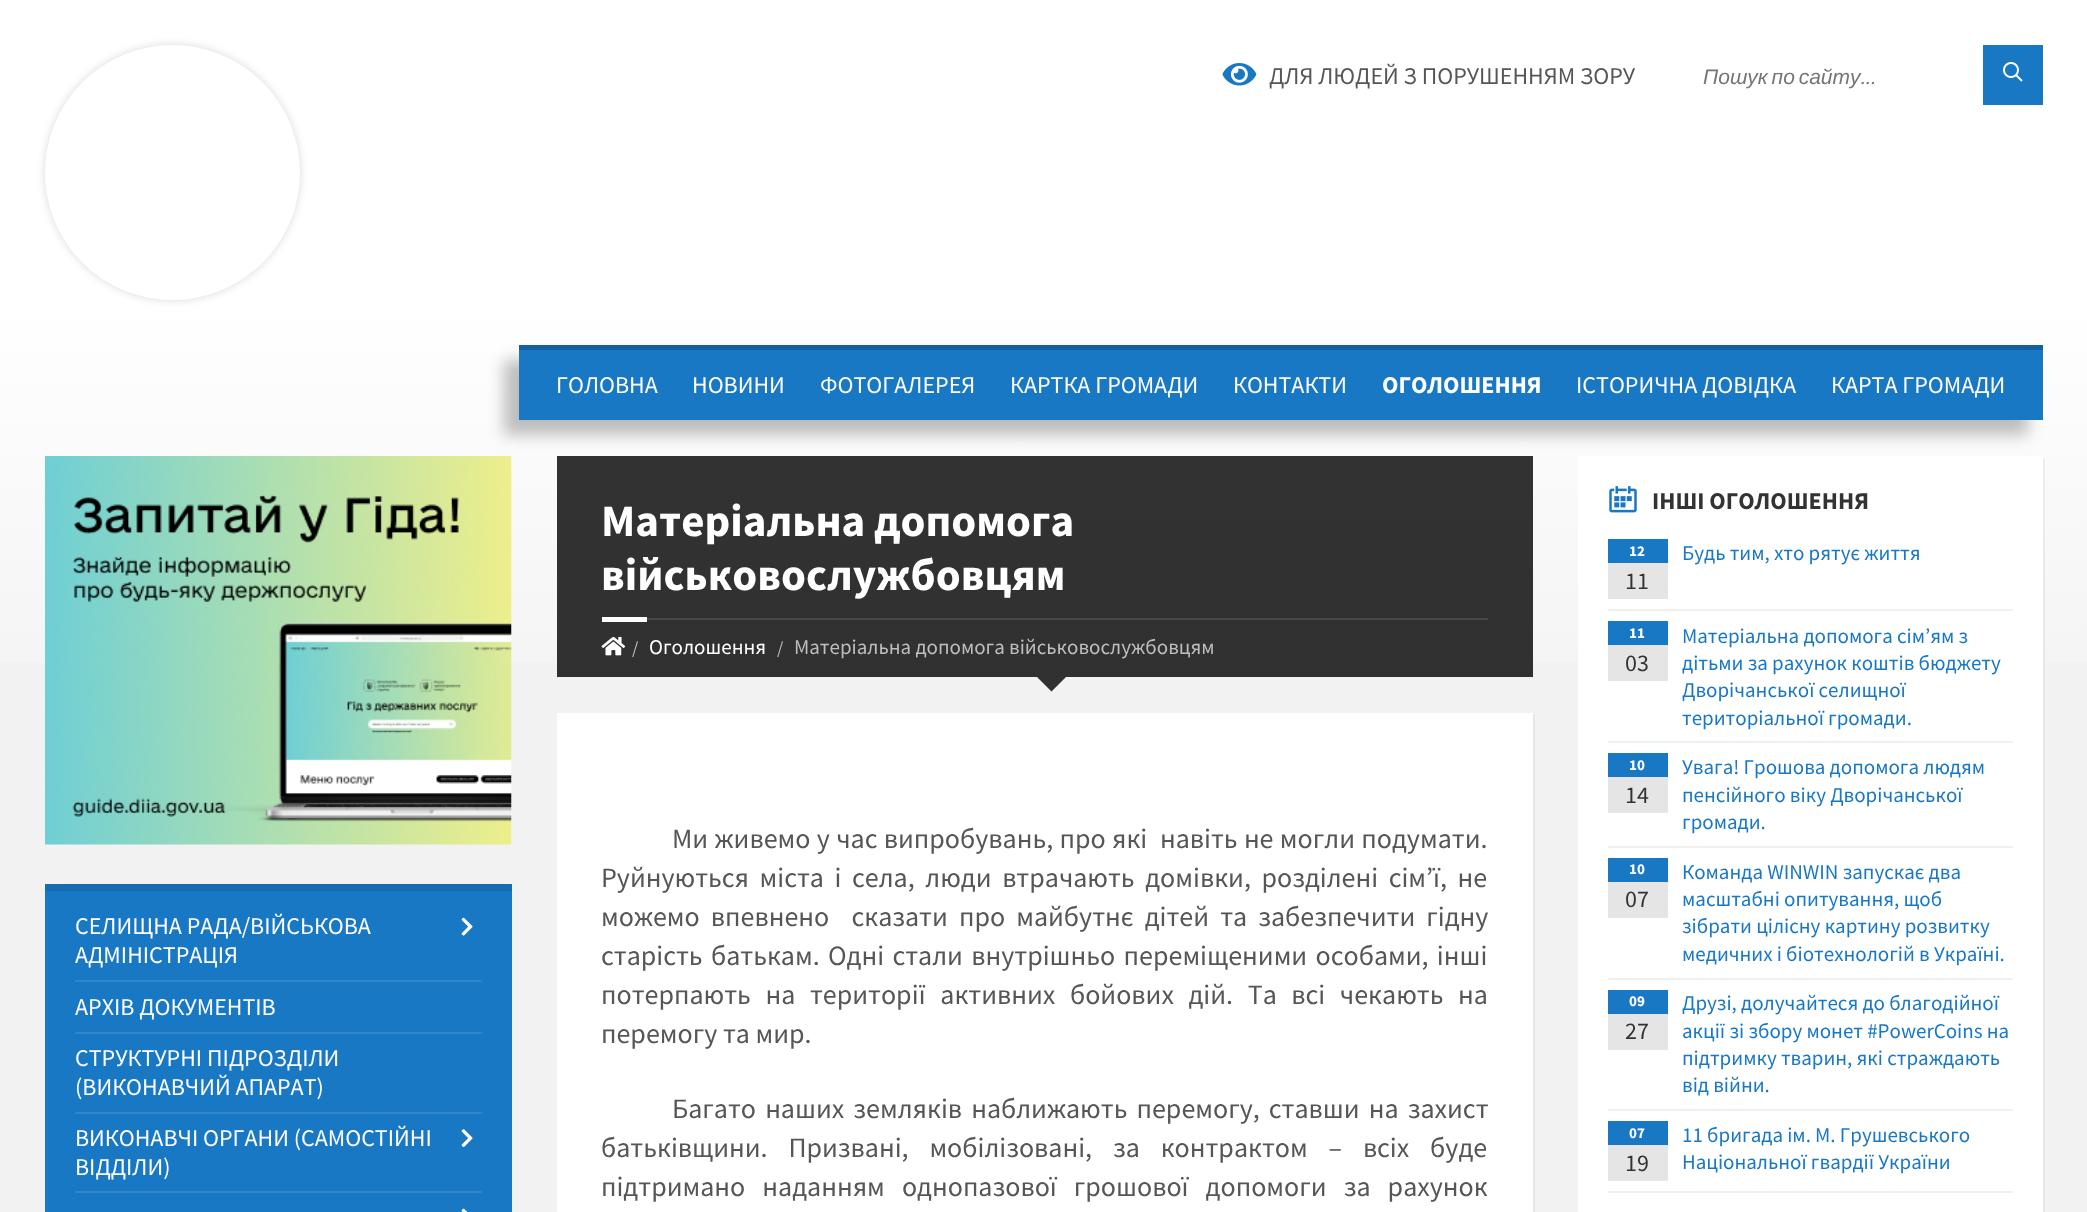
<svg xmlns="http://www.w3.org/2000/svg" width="2087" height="1212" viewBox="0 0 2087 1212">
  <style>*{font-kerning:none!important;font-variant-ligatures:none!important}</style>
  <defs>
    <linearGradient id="g1" gradientUnits="userSpaceOnUse" x1="1044" y1="300" x2="1044" y2="750"><stop offset="0" stop-color="#ffffff"/><stop offset="1" stop-color="#f2f2f2"/></linearGradient>
    <linearGradient id="g2" gradientUnits="userSpaceOnUse" x1="1044" y1="300" x2="1044" y2="750"><stop offset="0" stop-color="#333333"/><stop offset="1" stop-color="#303030"/></linearGradient>
    <filter id="blur1" x="-50%" y="-200%" width="200%" height="500%"><feGaussianBlur stdDeviation="4.5"/></filter>
    <filter id="blur2" x="-50%" y="-200%" width="200%" height="500%"><feGaussianBlur stdDeviation="7.5"/></filter>
  </defs>
  <rect width="100%" height="100%" fill="#f2f2f2"/>
  <rect x="0" y="0" width="2087" height="300" fill="#ffffff"/>
  <rect x="0" y="300" width="2087" height="363" fill="url(#g1)"/>
  <rect x="557" y="456" width="976" height="221" fill="url(#g2)"/>
  <rect x="45" y="45" width="255" height="255" rx="127.5" fill="#000000" fill-opacity="0.15" filter="url(#blur1)"/>
  <circle cx="172.5" cy="172.5" r="126" fill="#ffffff" stroke="#ffffff" stroke-width="3"/>
  <image x="1222" y="63" width="35" height="23" href="img1.png"/>
  <text x="1269" y="84" font-family="Source Sans Pro" font-size="24" fill="#565656">ДЛЯ ЛЮДЕЙ З ПОРУШЕННЯМ ЗОРУ</text>
  <text x="1703" y="84" word-spacing="-2" font-family="Liberation Sans" font-size="21" font-style="italic" fill="#757575">Пошук по сайту</text>
  <text x="1861" y="84" font-family="Source Sans Pro" font-size="21" font-style="italic" fill="#757575">...</text>
  <rect x="1983" y="45" width="60" height="60" fill="#1978c4"/>
  <image x="2003" y="62" width="20" height="20" href="img2.png"/>
  <image x="45" y="456" width="467" height="389" href="img3.png"/>
  <path d="M1580 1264V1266H2045V458H2043V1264Z" fill="#000000" fill-opacity="0.05"/>
  <rect x="1578" y="456" width="465" height="756" fill="#ffffff"/>
  <rect x="504" y="360" width="1524" height="75" fill="#000000" fill-opacity="0.25" filter="url(#blur2)"/>
  <rect x="519" y="350" width="1524" height="70" fill="#1978c4"/>
  <rect x="519" y="345" width="1524" height="5" fill="#14609d"/>
  <text x="556" y="393" font-family="Source Sans Pro" font-size="24" fill="#ffffff">ГОЛОВНА</text>
  <text x="692" y="393" font-family="Source Sans Pro" font-size="24" fill="#ffffff">НОВИНИ</text>
  <text x="820" y="393" font-family="Source Sans Pro" font-size="24" fill="#ffffff">ФОТОГАЛЕРЕЯ</text>
  <text x="1010" y="393" font-family="Source Sans Pro" font-size="24" fill="#ffffff">КАРТКА ГРОМАДИ</text>
  <text x="1233" y="393" font-family="Source Sans Pro" font-size="24" fill="#ffffff">КОНТАКТИ</text>
  <text x="1382" y="393" font-family="Source Sans Pro" font-size="24" font-weight="bold" fill="#ffffff">ОГОЛОШЕННЯ</text>
  <text x="1576" y="393" font-family="Source Sans Pro" font-size="24" fill="#ffffff">ІСТОРИЧНА ДОВІДКА</text>
  <text x="1831" y="393" font-family="Source Sans Pro" font-size="24" fill="#ffffff">КАРТА ГРОМАДИ</text>
  <rect x="45" y="891" width="467" height="321" fill="#1978c4"/>
  <rect x="45" y="884" width="467" height="7" fill="#176cb0"/>
  <text x="75" y="934" font-family="Source Sans Pro" font-size="24" fill="#ffffff">СЕЛИЩНА РАДА/ВІЙСЬКОВА</text>
  <image x="461" y="917" width="12" height="19" href="img4.png"/>
  <text x="75" y="963" font-family="Source Sans Pro" font-size="24" fill="#ffffff">АДМІНІСТРАЦІЯ</text>
  <rect x="75" y="980" width="407" height="2" fill="#3086ca"/>
  <text x="75" y="1015" font-family="Source Sans Pro" font-size="24" fill="#ffffff">АРХІВ ДОКУМЕНТІВ</text>
  <rect x="75" y="1032" width="407" height="2" fill="#3086ca"/>
  <text x="75" y="1066" font-family="Source Sans Pro" font-size="24" fill="#ffffff">СТРУКТУРНІ ПІДРОЗДІЛИ</text>
  <text x="75" y="1095" font-family="Source Sans Pro" font-size="24" fill="#ffffff">(ВИКОНАВЧИЙ АПАРАТ)</text>
  <rect x="75" y="1112" width="407" height="2" fill="#3086ca"/>
  <text x="75" y="1146" font-family="Source Sans Pro" font-size="24" fill="#ffffff">ВИКОНАВЧІ ОРГАНИ (САМОСТІЙНІ</text>
  <image x="461" y="1129" width="12" height="19" href="img5.png"/>
  <text x="75" y="1175" font-family="Source Sans Pro" font-size="24" fill="#ffffff">ВІДДІЛИ)</text>
  <rect x="75" y="1191" width="407" height="2" fill="#3086ca"/>
  <image x="461" y="1208" width="7" height="4" href="img6.png"/>
  <rect x="647" y="618" width="841" height="2" fill="#464646"/>
  <text x="601" y="536" font-family="Source Sans Pro" font-size="45" font-weight="bold" fill="#ffffff">Матеріальна допомога</text>
  <text x="601" y="590" font-family="Source Sans Pro" font-size="45" font-weight="bold" fill="#ffffff">військовослужбовцям</text>
  <rect x="602" y="617" width="45" height="5" fill="#ffffff"/>
  <image x="601" y="636" width="25" height="20" href="img7.png"/>
  <text x="632" y="654" font-family="Source Sans Pro" font-size="18" fill="#bebebe">/</text>
  <text x="649" y="654" font-family="Source Sans Pro" font-size="21" fill="#ffffff">Оголошення</text>
  <text x="777" y="654" font-family="Source Sans Pro" font-size="18" fill="#bebebe">/</text>
  <text x="794" y="654" font-family="Source Sans Pro" font-size="21" fill="#bebebe">Матеріальна допомога військовослужбовцям</text>
  <path d="M1036.5 676.5H1066.5L1051.5 691.5Z" fill="#313131"/>
  <path d="M558 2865V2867H1535V714H1533V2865Z" fill="#e6e6e6"/>
  <rect x="557" y="713" width="976" height="499" fill="#ffffff"/>
  <text x="672" y="848" word-spacing="0.75" font-family="Source Sans Pro" font-size="28" fill="#565656" xml:space="preserve">Ми живемо у час випробувань, про які  навіть не могли подумати.</text>
  <text x="601" y="887" word-spacing="5" font-family="Source Sans Pro" font-size="28" fill="#565656">Руйнуються міста і села, люди втрачають домівки, розділені сім’ї, не</text>
  <text x="601" y="926" word-spacing="5.5" font-family="Source Sans Pro" font-size="28" fill="#565656" xml:space="preserve">можемо впевнено  сказати про майбутнє дітей та забезпечити гідну</text>
  <text x="601" y="965" word-spacing="2.75" font-family="Source Sans Pro" font-size="28" fill="#565656">старість батькам. Одні стали внутрішньо переміщеними особами, інші</text>
  <text x="601" y="1004" word-spacing="9" font-family="Source Sans Pro" font-size="28" fill="#565656">потерпають на території активних бойових дій. Та всі чекають на</text>
  <text x="601" y="1043" font-family="Source Sans Pro" font-size="28" fill="#565656">перемогу та мир.</text>
  <text x="672" y="1118" word-spacing="3.5" font-family="Source Sans Pro" font-size="28" fill="#565656">Багато наших земляків наближають перемогу, ставши на захист</text>
  <text x="601" y="1157" word-spacing="15.25" font-family="Source Sans Pro" font-size="28" fill="#565656">батьківщини. Призвані, мобілізовані, за контрактом – всіх буде</text>
  <text x="601" y="1196" word-spacing="11.5" font-family="Source Sans Pro" font-size="28" fill="#565656">підтримано наданням однопазової грошової допомоги за рахунок</text>
  <image x="1609" y="486" width="28" height="27" href="img8.png"/>
  <text x="1652" y="509" font-family="Source Sans Pro" font-size="24" font-weight="bold" fill="#333333">ІНШІ ОГОЛОШЕННЯ</text>
  <rect x="1608" y="539" width="60" height="24" fill="#1978c4"/>
  <text x="1629" y="556" font-family="Source Sans Pro" font-size="15" font-weight="bold" fill="#ffffff">12</text>
  <rect x="1608" y="563" width="60" height="36" fill="#e5e5e5"/>
  <text x="1625" y="589" font-family="Source Sans Pro" font-size="24" fill="#333333">11</text>
  <text x="1682" y="560" font-family="Source Sans Pro" font-size="21" fill="#1978c4">Будь тим, хто рятує життя</text>
  <rect x="1608" y="609" width="405" height="2" fill="#f0f0f0"/>
  <rect x="1608" y="621" width="60" height="24" fill="#1978c4"/>
  <text x="1629" y="638" font-family="Source Sans Pro" font-size="15" font-weight="bold" fill="#ffffff">11</text>
  <rect x="1608" y="645" width="60" height="36" fill="#e5e5e5"/>
  <text x="1625" y="671" font-family="Source Sans Pro" font-size="24" fill="#333333">03</text>
  <text x="1682" y="643" font-family="Source Sans Pro" font-size="21" fill="#1978c4">Матеріальна допомога сім’ям з</text>
  <text x="1682" y="670" font-family="Source Sans Pro" font-size="21" fill="#1978c4">дітьми за рахунок коштів бюджету</text>
  <text x="1682" y="697" font-family="Source Sans Pro" font-size="21" fill="#1978c4">Дворічанської селищної</text>
  <text x="1682" y="725" font-family="Source Sans Pro" font-size="21" fill="#1978c4">територіальної громади.</text>
  <rect x="1608" y="741" width="405" height="2" fill="#f0f0f0"/>
  <rect x="1608" y="753" width="60" height="24" fill="#1978c4"/>
  <text x="1629" y="770" font-family="Source Sans Pro" font-size="15" font-weight="bold" fill="#ffffff">10</text>
  <rect x="1608" y="777" width="60" height="36" fill="#e5e5e5"/>
  <text x="1625" y="803" font-family="Source Sans Pro" font-size="24" fill="#333333">14</text>
  <text x="1682" y="774" font-family="Source Sans Pro" font-size="21" fill="#1978c4">Увага! Грошова допомога людям</text>
  <text x="1682" y="802" font-family="Source Sans Pro" font-size="21" fill="#1978c4">пенсійного віку Дворічанської</text>
  <text x="1682" y="829" font-family="Source Sans Pro" font-size="21" fill="#1978c4">громади.</text>
  <rect x="1608" y="846" width="405" height="2" fill="#f0f0f0"/>
  <rect x="1608" y="858" width="60" height="24" fill="#1978c4"/>
  <text x="1629" y="874" font-family="Source Sans Pro" font-size="15" font-weight="bold" fill="#ffffff">10</text>
  <rect x="1608" y="882" width="60" height="36" fill="#e5e5e5"/>
  <text x="1625" y="907" font-family="Source Sans Pro" font-size="24" fill="#333333">07</text>
  <text x="1682" y="879" font-family="Source Sans Pro" font-size="21" fill="#1978c4">Команда WINWIN запускає два</text>
  <text x="1682" y="906" font-family="Source Sans Pro" font-size="21" fill="#1978c4">масштабні опитування, щоб</text>
  <text x="1682" y="933" font-family="Source Sans Pro" font-size="21" fill="#1978c4">зібрати цілісну картину розвитку</text>
  <text x="1682" y="961" font-family="Source Sans Pro" font-size="21" fill="#1978c4">медичних і біотехнологій в Україні.</text>
  <rect x="1608" y="978" width="405" height="2" fill="#f0f0f0"/>
  <rect x="1608" y="990" width="60" height="24" fill="#1978c4"/>
  <text x="1629" y="1006" font-family="Source Sans Pro" font-size="15" font-weight="bold" fill="#ffffff">09</text>
  <rect x="1608" y="1014" width="60" height="36" fill="#e5e5e5"/>
  <text x="1625" y="1039" font-family="Source Sans Pro" font-size="24" fill="#333333">27</text>
  <text x="1682" y="1010" font-family="Source Sans Pro" font-size="21" fill="#1978c4">Друзі, долучайтеся до благодійної</text>
  <text x="1682" y="1038" font-family="Source Sans Pro" font-size="21" fill="#1978c4">акції зі збору монет #PowerCoins на</text>
  <text x="1682" y="1065" font-family="Source Sans Pro" font-size="21" fill="#1978c4">підтримку тварин, які страждають</text>
  <text x="1682" y="1092" font-family="Source Sans Pro" font-size="21" fill="#1978c4">від війни.</text>
  <rect x="1608" y="1109" width="405" height="2" fill="#f0f0f0"/>
  <rect x="1608" y="1121" width="60" height="24" fill="#1978c4"/>
  <text x="1629" y="1138" font-family="Source Sans Pro" font-size="15" font-weight="bold" fill="#ffffff">07</text>
  <rect x="1608" y="1145" width="60" height="36" fill="#e5e5e5"/>
  <text x="1625" y="1171" font-family="Source Sans Pro" font-size="24" fill="#333333">19</text>
  <text x="1682" y="1142" font-family="Source Sans Pro" font-size="21" fill="#1978c4">11 бригада ім. М. Грушевського</text>
  <text x="1682" y="1169" font-family="Source Sans Pro" font-size="21" fill="#1978c4">Національної гвардії України</text>
  <rect x="1608" y="1191" width="405" height="2" fill="#f0f0f0"/>
</svg>
